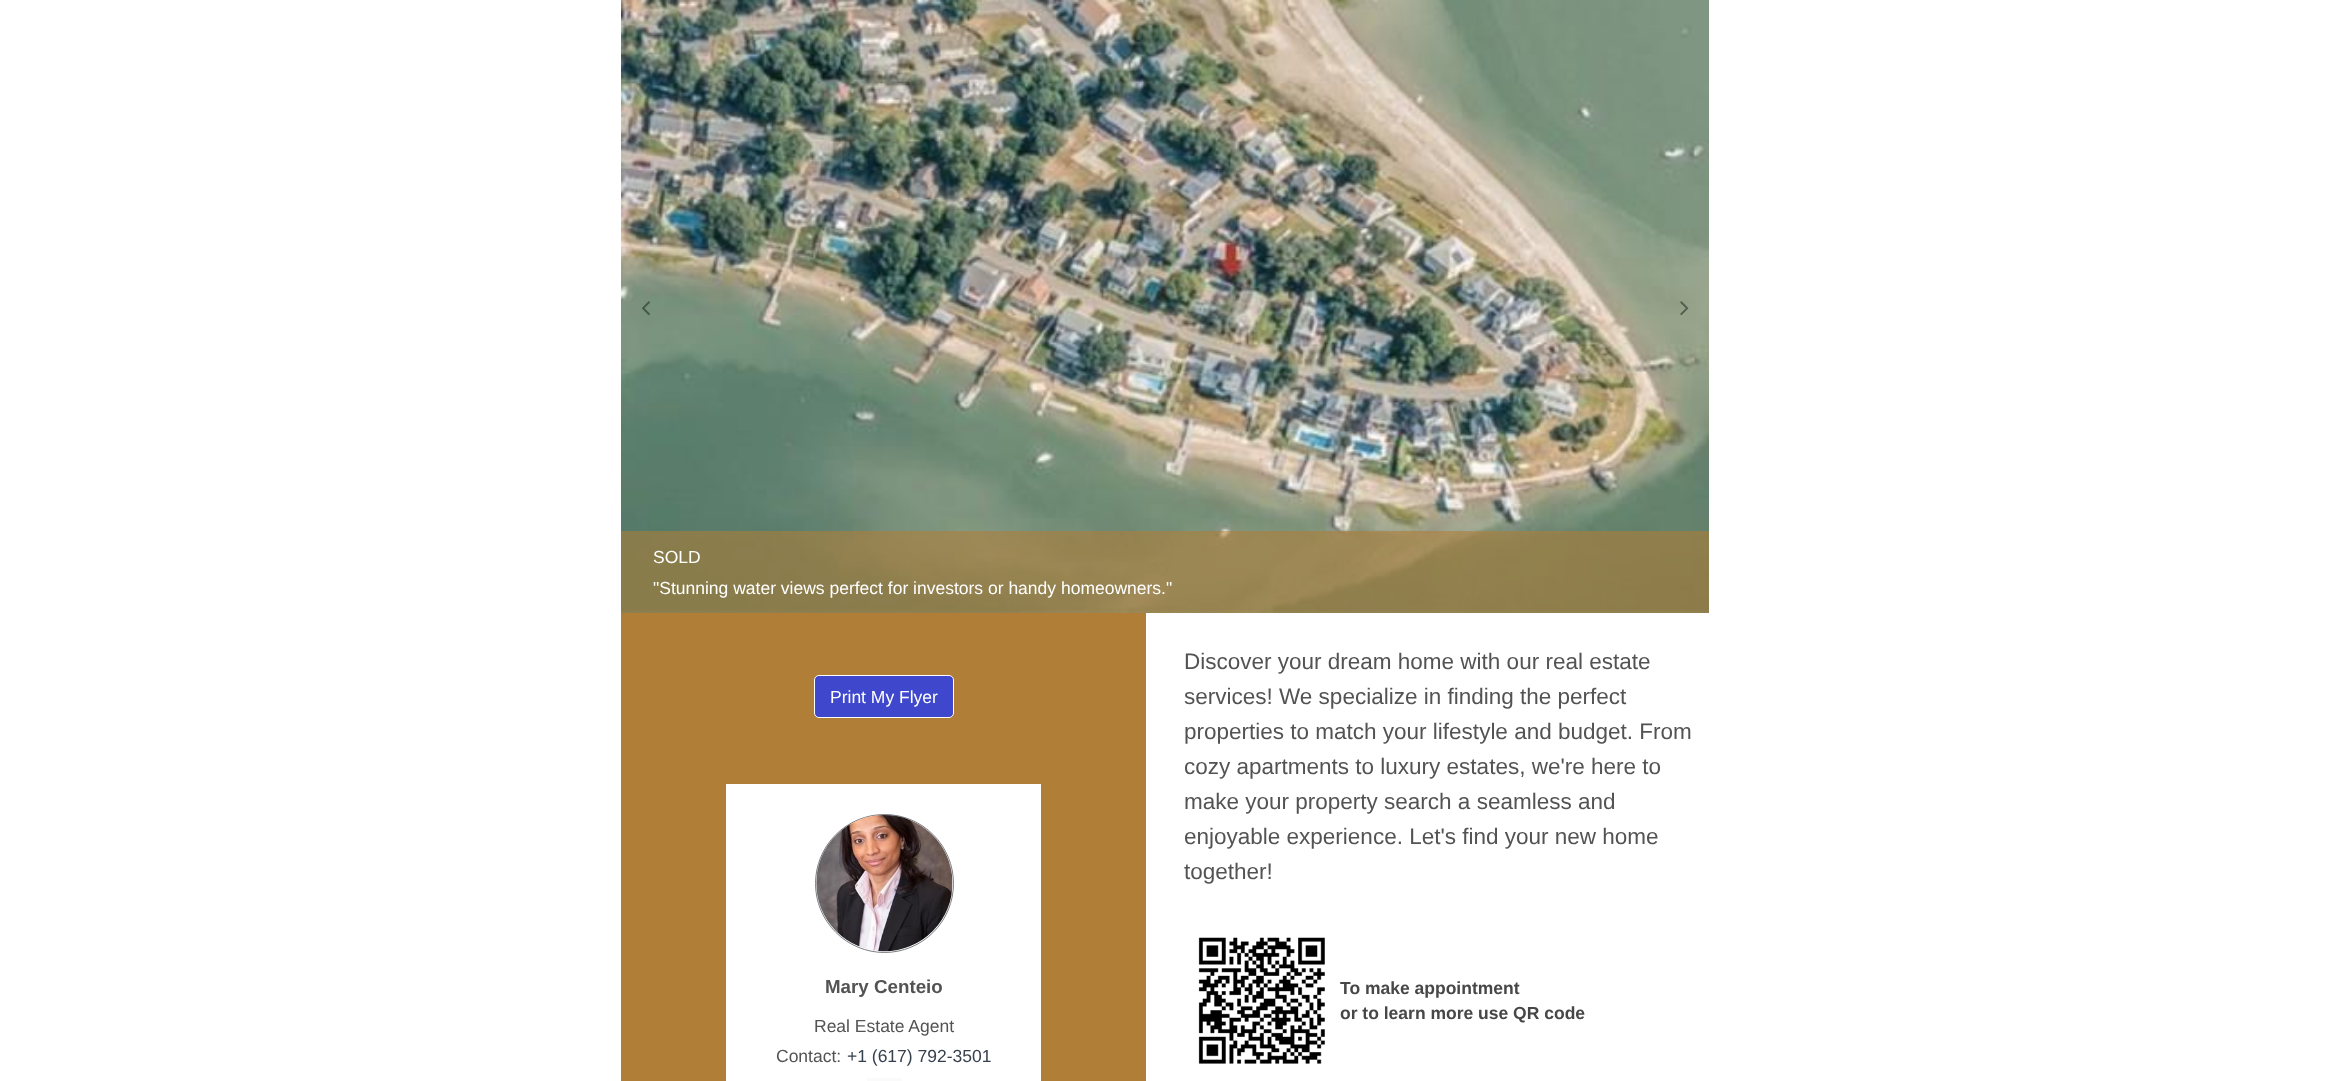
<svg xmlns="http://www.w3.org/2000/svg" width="2330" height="1081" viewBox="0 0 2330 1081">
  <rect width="100%" height="100%" fill="#ffffff"/>
  <image x="621" y="0" width="1088" height="613" href="img3.png"/>
  <image x="642" y="301" width="8" height="14" href="img1.png"/>
  <image x="1680" y="301" width="9" height="15" href="img2.png"/>
  <rect x="621" y="531" width="1088" height="82" fill="#b07e37" fill-opacity="0.58"/>
  <text x="653" y="563" font-family="Liberation Sans" font-size="17.5" fill="#ffffff">SOLD</text>
  <text x="653" y="594" font-family="Liberation Sans" font-size="17.5" fill="#ffffff">"Stunning water views perfect for investors or handy homeowners."</text>
  <rect x="621" y="613" width="525" height="468" fill="#b07e37"/>
  <rect x="814.5" y="675.5" width="139" height="42" rx="4.5" fill="#3f48cc" stroke="#ffffff"/>
  <text x="830" y="703" font-family="Liberation Sans" font-size="17.5" fill="#ffffff">Print My Flyer</text>
  <rect x="726" y="784" width="315" height="297" fill="#ffffff"/>
  <circle cx="884.5" cy="883.5" r="69" fill="none" stroke="#7e7f83"/>
  <image x="816" y="815" width="137" height="137" href="img4.png"/>
  <text x="825" y="993" font-family="Liberation Sans" font-size="18.75" font-weight="bold" fill="#535353">Mary Centeio</text>
  <text x="814" y="1032" font-family="Liberation Sans" font-size="17.5" fill="#535353">Real Estate Agent</text>
  <text x="776" y="1062" font-family="Liberation Sans" font-size="17.5" fill="#535353">Contact:</text>
  <text x="847" y="1062" font-family="Liberation Sans" font-size="17.5" fill="#37404d">+1 (617) 792-3501</text>
  <rect x="867" y="1078" width="35" height="3" fill="#fafafa"/>
  <text x="1184" y="669" font-family="Liberation Sans" font-size="22.5" fill="#535353">Discover your dream home with our real estate</text>
  <text x="1184" y="704" font-family="Liberation Sans" font-size="22.5" fill="#535353">services! We specialize in finding the perfect</text>
  <text x="1184" y="739" font-family="Liberation Sans" font-size="22.5" fill="#535353">properties to match your lifestyle and budget. From</text>
  <text x="1184" y="774" font-family="Liberation Sans" font-size="22.5" fill="#535353">cozy apartments to luxury estates, we're here to</text>
  <text x="1184" y="809" font-family="Liberation Sans" font-size="22.5" fill="#535353">make your property search a seamless and</text>
  <text x="1184" y="844" font-family="Liberation Sans" font-size="22.5" fill="#535353">enjoyable experience. Let's find your new home</text>
  <text x="1184" y="879" font-family="Liberation Sans" font-size="22.5" fill="#535353">together!</text>
  <image x="1198" y="937" width="127" height="127" href="img5.png"/>
  <text x="1340" y="994" font-family="Liberation Sans" font-size="17.5" font-weight="bold" fill="#474747">To make appointment</text>
  <text x="1340" y="1019" font-family="Liberation Sans" font-size="17.5" font-weight="bold" fill="#474747">or to learn more use QR code</text>
</svg>
